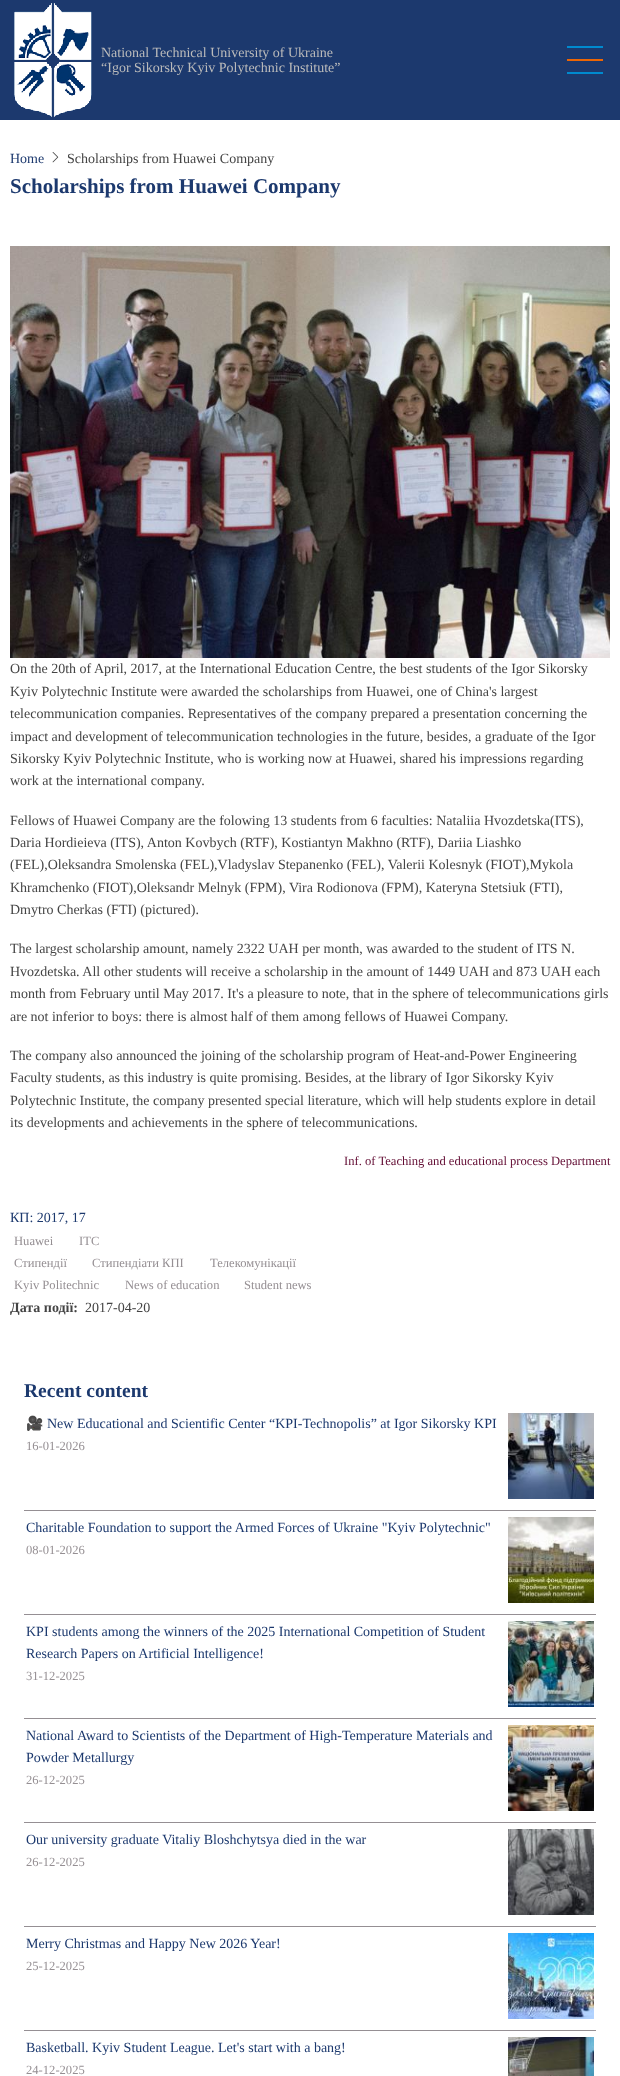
<svg xmlns="http://www.w3.org/2000/svg" width="620" height="2076" viewBox="0 0 620 2076">
  <rect width="100%" height="100%" fill="#ffffff"/>
  <rect x="0" y="0" width="620" height="120" fill="#1c396e"/>
  <image x="14" y="3" width="78" height="114" href="img1.png"/>
  <text x="101" y="57" font-family="Liberation Serif" font-size="14" fill="#bbbbbb">National Technical University of Ukraine</text>
  <text x="101" y="72" font-family="Liberation Serif" font-size="14" fill="#bbbbbb">“Igor Sikorsky Kyiv Polytechnic Institute”</text>
  <rect x="567" y="46" width="36" height="2" fill="#008acf"/>
  <rect x="567" y="59" width="36" height="2" fill="#ec6605"/>
  <rect x="567" y="72" width="36" height="2" fill="#008acf"/>
  <text x="10" y="163" font-family="Liberation Serif" font-size="14" fill="#1c396e">Home</text>
  <image x="52" y="152" width="7" height="11" href="img2.png"/>
  <text x="67" y="163" font-family="Liberation Serif" font-size="14" fill="#444444">Scholarships from Huawei Company</text>
  <text x="10" y="193" font-family="Liberation Serif" font-size="21" font-weight="bold" fill="#1c396e">Scholarships from Huawei Company</text>
  <image x="10" y="246" width="600" height="412" href="img3.png"/>
  <text x="10" y="673" font-family="Liberation Serif" font-size="14" fill="#444444">On the 20th of April, 2017, at the International Education Centre, the best students of the Igor Sikorsky</text>
  <text x="10" y="696" font-family="Liberation Serif" font-size="14" fill="#444444">Kyiv Polytechnic Institute were awarded the scholarships from Huawei, one of China's largest</text>
  <text x="10" y="718" font-family="Liberation Serif" font-size="14" fill="#444444">telecommunication companies. Representatives of the company prepared a presentation concerning the</text>
  <text x="10" y="741" font-family="Liberation Serif" font-size="14" fill="#444444">impact and development of telecommunication technologies in the future, besides, a graduate of the Igor</text>
  <text x="10" y="763" font-family="Liberation Serif" font-size="14" fill="#444444">Sikorsky Kyiv Polytechnic Institute, who is working now at Huawei, shared his impressions regarding</text>
  <text x="10" y="785" font-family="Liberation Serif" font-size="14" fill="#444444">work at the international company.</text>
  <text x="10" y="825" font-family="Liberation Serif" font-size="14" fill="#444444">Fellows of Huawei Company are the folowing 13 students from 6 faculties: Nataliia Hvozdetska(ITS),</text>
  <text x="10" y="847" font-family="Liberation Serif" font-size="14" fill="#444444">Daria Hordieieva (ITS), Anton Kovbych (RTF), Kostiantyn Makhno (RTF), Dariia Liashko</text>
  <text x="10" y="869" font-family="Liberation Serif" font-size="14" fill="#444444">(FEL),Oleksandra Smolenska (FEL),Vladyslav Stepanenko (FEL), Valerii Kolesnyk (FIOT),Mykola</text>
  <text x="10" y="892" font-family="Liberation Serif" font-size="14" fill="#444444">Khramchenko (FIOT),Oleksandr Melnyk (FPM), Vira Rodionova (FPM), Kateryna Stetsiuk (FTI),</text>
  <text x="10" y="914" font-family="Liberation Serif" font-size="14" fill="#444444">Dmytro Cherkas (FTI) (pictured).</text>
  <text x="10" y="953" font-family="Liberation Serif" font-size="14" fill="#444444">The largest scholarship amount, namely 2322 UAH per month, was awarded to the student of ITS N.</text>
  <text x="10" y="976" font-family="Liberation Serif" font-size="14" fill="#444444">Hvozdetska. All other students will receive a scholarship in the amount of 1449 UAH and 873 UAH each</text>
  <text x="10" y="998" font-family="Liberation Serif" font-size="14" fill="#444444">month from February until May 2017. It's a pleasure to note, that in the sphere of telecommunications girls</text>
  <text x="10" y="1021" font-family="Liberation Serif" font-size="14" fill="#444444">are not inferior to boys: there is almost half of them among fellows of Huawei Company.</text>
  <text x="10" y="1060" font-family="Liberation Serif" font-size="14" fill="#444444">The company also announced the joining of the scholarship program of Heat-and-Power Engineering</text>
  <text x="10" y="1082" font-family="Liberation Serif" font-size="14" fill="#444444">Faculty students, as this industry is quite promising. Besides, at the library of Igor Sikorsky Kyiv</text>
  <text x="10" y="1105" font-family="Liberation Serif" font-size="14" fill="#444444">Polytechnic Institute, the company presented special literature, which will help students explore in detail</text>
  <text x="10" y="1127" font-family="Liberation Serif" font-size="14" fill="#444444">its developments and achievements in the sphere of telecommunications.</text>
  <text x="344" y="1165" font-family="Liberation Serif" font-size="12.6" fill="#620c33">Inf. of Teaching and educational process Department</text>
  <text x="10" y="1222" font-family="Liberation Serif" font-size="14" fill="#1c396e">КП: 2017, 17</text>
  <text x="14" y="1245" font-family="Liberation Serif" font-size="12.6" fill="#958f93">Huawei</text>
  <text x="79" y="1245" font-family="Liberation Serif" font-size="12.6" fill="#958f93">ІТС</text>
  <text x="14" y="1267" font-family="Liberation Serif" font-size="12.6" fill="#958f93">Стипендії</text>
  <text x="92" y="1267" font-family="Liberation Serif" font-size="12.6" fill="#958f93">Стипендіати КПІ</text>
  <text x="210" y="1267" font-family="Liberation Serif" font-size="12.6" fill="#958f93">Телекомунікації</text>
  <text x="14" y="1289" font-family="Liberation Serif" font-size="12.6" fill="#958f93">Kyiv Politechnic</text>
  <text x="125" y="1289" font-family="Liberation Serif" font-size="12.6" fill="#958f93">News of education</text>
  <text x="244" y="1289" font-family="Liberation Serif" font-size="12.6" fill="#958f93">Student news</text>
  <text x="10" y="1312" font-family="Liberation Serif" font-size="14" font-weight="bold" fill="#444444">Дата події:</text>
  <text x="85" y="1312" font-family="Liberation Serif" font-size="14" fill="#444444">2017-04-20</text>
  <text x="24" y="1397" font-family="Liberation Serif" font-size="19.5" font-weight="bold" fill="#1c396e">Recent content</text>
  <rect x="24" y="1510" width="572" height="1" fill="#958f93"/>
  <text x="26" y="1428" font-family="Noto Color Emoji" font-size="14" fill="#1c396e">🎥</text>
  <text x="47" y="1428" font-family="Liberation Serif" font-size="14" fill="#1c396e">New Educational and Scientific Center “KPI-Technopolis” at Igor Sikorsky KPI</text>
  <image x="508" y="1413" width="86" height="86" href="img4.png"/>
  <text x="26" y="1450" font-family="Liberation Serif" font-size="12.6" fill="#958f93">16-01-2026</text>
  <rect x="24" y="1614" width="572" height="1" fill="#958f93"/>
  <text x="26" y="1532" font-family="Liberation Serif" font-size="14" fill="#1c396e">Charitable Foundation to support the Armed Forces of Ukraine "Kyiv Polytechnic"</text>
  <image x="508" y="1517" width="86" height="86" href="img5.png"/>
  <text x="26" y="1554" font-family="Liberation Serif" font-size="12.6" fill="#958f93">08-01-2026</text>
  <rect x="24" y="1718" width="572" height="1" fill="#958f93"/>
  <text x="26" y="1636" font-family="Liberation Serif" font-size="14" fill="#1c396e">KPI students among the winners of the 2025 International Competition of Student</text>
  <text x="26" y="1658" font-family="Liberation Serif" font-size="14" fill="#1c396e">Research Papers on Artificial Intelligence!</text>
  <image x="508" y="1621" width="86" height="86" href="img6.png"/>
  <text x="26" y="1680" font-family="Liberation Serif" font-size="12.6" fill="#958f93">31-12-2025</text>
  <rect x="24" y="1822" width="572" height="1" fill="#958f93"/>
  <text x="26" y="1740" font-family="Liberation Serif" font-size="14" fill="#1c396e">National Award to Scientists of the Department of High-Temperature Materials and</text>
  <text x="26" y="1762" font-family="Liberation Serif" font-size="14" fill="#1c396e">Powder Metallurgy</text>
  <image x="508" y="1725" width="86" height="86" href="img7.png"/>
  <text x="26" y="1784" font-family="Liberation Serif" font-size="12.6" fill="#958f93">26-12-2025</text>
  <rect x="24" y="1926" width="572" height="1" fill="#958f93"/>
  <text x="26" y="1844" font-family="Liberation Serif" font-size="14" fill="#1c396e">Our university graduate Vitaliy Bloshchytsya died in the war</text>
  <image x="508" y="1829" width="86" height="86" href="img8.png"/>
  <text x="26" y="1866" font-family="Liberation Serif" font-size="12.6" fill="#958f93">26-12-2025</text>
  <rect x="24" y="2030" width="572" height="1" fill="#958f93"/>
  <text x="26" y="1948" font-family="Liberation Serif" font-size="14" fill="#1c396e">Merry Christmas and Happy New 2026 Year!</text>
  <image x="508" y="1933" width="86" height="86" href="img9.png"/>
  <text x="26" y="1970" font-family="Liberation Serif" font-size="12.6" fill="#958f93">25-12-2025</text>
  <text x="26" y="2052" font-family="Liberation Serif" font-size="14" fill="#1c396e">Basketball. Kyiv Student League. Let's start with a bang!</text>
  <image x="508" y="2037" width="86" height="39" href="img10.png"/>
  <text x="26" y="2074" font-family="Liberation Serif" font-size="12.6" fill="#958f93">24-12-2025</text>
</svg>
